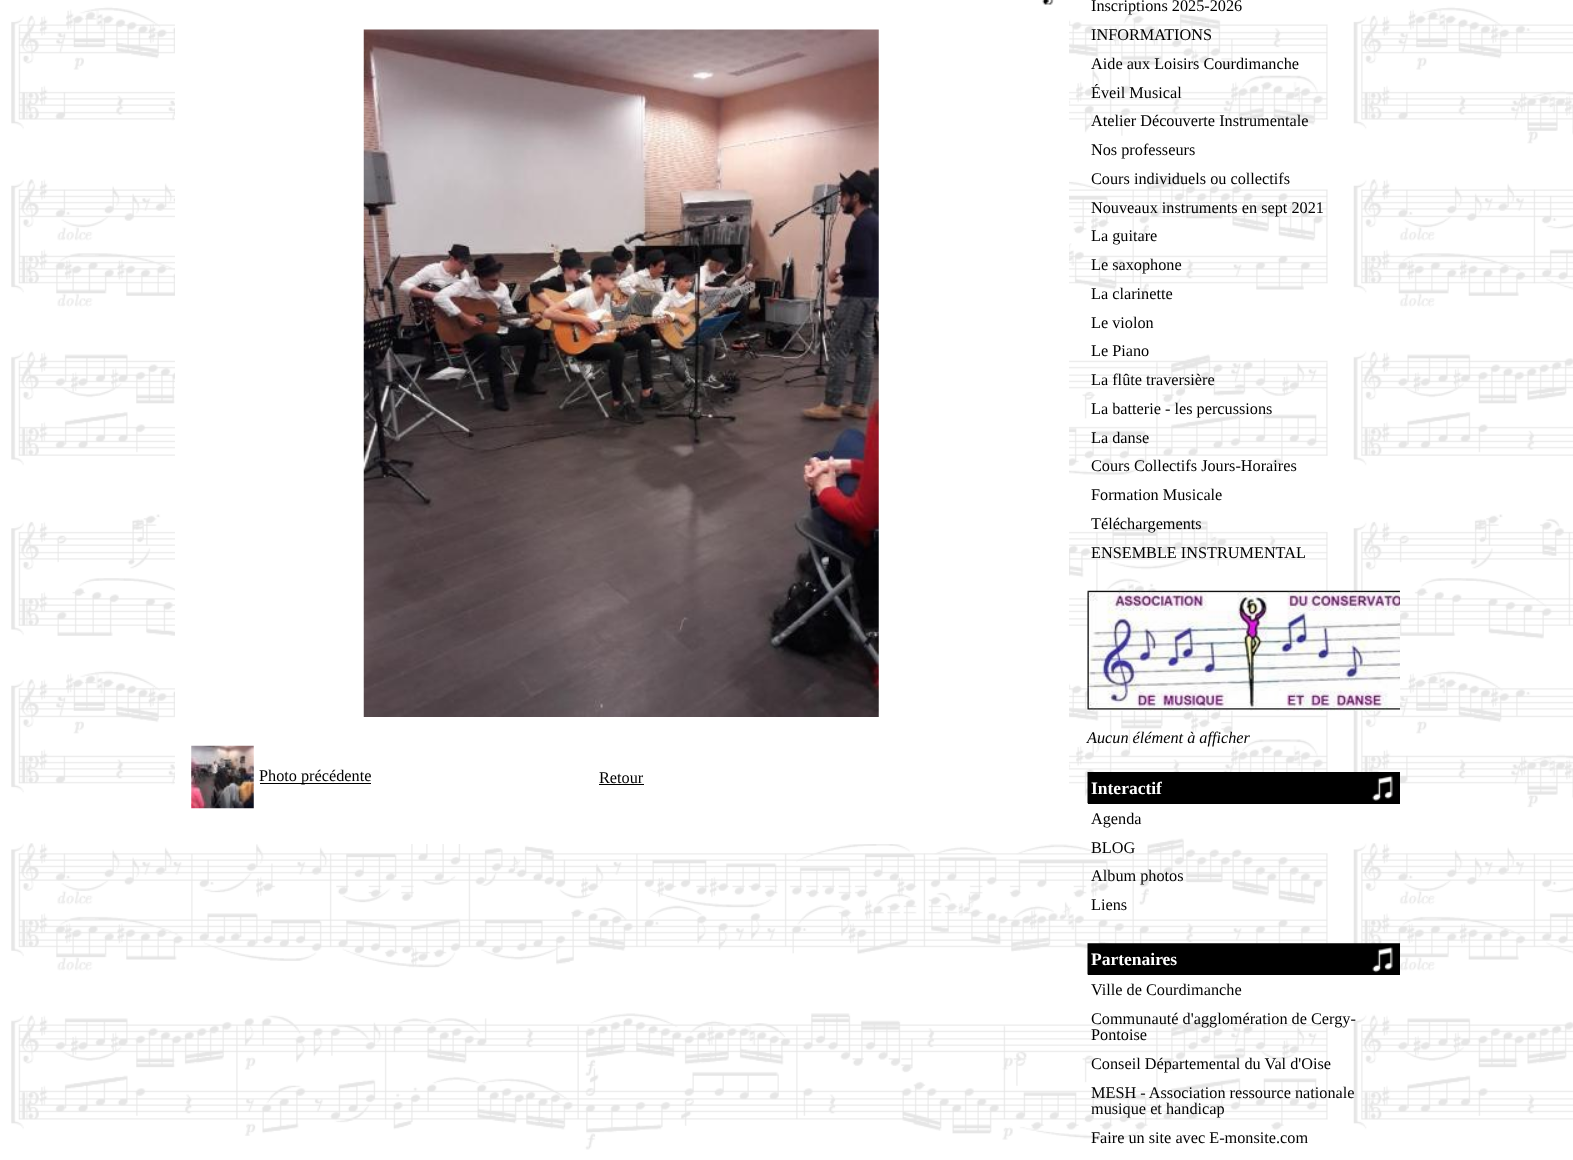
<svg xmlns="http://www.w3.org/2000/svg" width="1573" height="1160" viewBox="0 0 1573 1160">
  <rect width="100%" height="100%" fill="#ffffff"/>
  <image x="0" y="0" width="1573" height="1160" href="img1.png"/>
  <rect x="175" y="-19" width="894" height="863" rx="19" fill="#ffffff"/>
  <image x="1042" y="0" width="12" height="5" href="img2.png"/>
  <image x="363" y="29" width="516" height="688" href="img3.png"/>
  <image x="191" y="745" width="63" height="64" href="img4.png"/>
  <rect x="260" y="783" width="111" height="1" fill="#000000"/>
  <text x="259" y="781" font-family="Liberation Serif" font-size="16.25" fill="#000000">Photo précédente</text>
  <text x="599" y="783" font-family="Liberation Serif" font-size="16.25" fill="#000000">Retour</text>
  <rect x="599" y="784" width="45" height="1" fill="#000000"/>
  <text x="1091" y="11" font-family="Liberation Serif" font-size="16.25" fill="#000000">Inscriptions 2025-2026</text>
  <text x="1091" y="40" font-family="Liberation Serif" font-size="16.25" fill="#000000">INFORMATIONS</text>
  <text x="1091" y="69" font-family="Liberation Serif" font-size="16.25" fill="#000000">Aide aux Loisirs Courdimanche</text>
  <text x="1091" y="98" font-family="Liberation Serif" font-size="16.25" fill="#000000">Éveil Musical</text>
  <text x="1091" y="126" font-family="Liberation Serif" font-size="16.25" fill="#000000">Atelier Découverte Instrumentale</text>
  <text x="1091" y="155" font-family="Liberation Serif" font-size="16.25" fill="#000000">Nos professeurs</text>
  <text x="1091" y="184" font-family="Liberation Serif" font-size="16.25" fill="#000000">Cours individuels ou collectifs</text>
  <text x="1091" y="213" font-family="Liberation Serif" font-size="16.25" fill="#000000">Nouveaux instruments en sept 2021</text>
  <text x="1091" y="241" font-family="Liberation Serif" font-size="16.25" fill="#000000">La guitare</text>
  <text x="1091" y="270" font-family="Liberation Serif" font-size="16.25" fill="#000000">Le saxophone</text>
  <text x="1091" y="299" font-family="Liberation Serif" font-size="16.25" fill="#000000">La clarinette</text>
  <text x="1091" y="328" font-family="Liberation Serif" font-size="16.25" fill="#000000">Le violon</text>
  <text x="1091" y="356" font-family="Liberation Serif" font-size="16.25" fill="#000000">Le Piano</text>
  <text x="1091" y="385" font-family="Liberation Serif" font-size="16.25" fill="#000000">La flûte traversière</text>
  <text x="1091" y="414" font-family="Liberation Serif" font-size="16.25" fill="#000000">La batterie - les percussions</text>
  <text x="1091" y="443" font-family="Liberation Serif" font-size="16.25" fill="#000000">La danse</text>
  <text x="1091" y="471" font-family="Liberation Serif" font-size="16.25" fill="#000000">Cours Collectifs Jours-Horaires</text>
  <text x="1091" y="500" font-family="Liberation Serif" font-size="16.25" fill="#000000">Formation Musicale</text>
  <text x="1091" y="529" font-family="Liberation Serif" font-size="16.25" fill="#000000">Téléchargements</text>
  <text x="1091" y="558" font-family="Liberation Serif" font-size="16.25" fill="#000000">ENSEMBLE INSTRUMENTAL</text>
  <image x="1087" y="590" width="313" height="121" href="img5.png"/>
  <text x="1087" y="743" font-family="Liberation Serif" font-size="16.25" font-style="italic" fill="#000000">Aucun élément à afficher</text>
  <rect x="1088" y="803" width="312" height="1" fill="#000000"/>
  <image x="1087" y="772" width="313" height="32" href="img6.png"/>
  <text x="1091" y="794" font-family="Liberation Serif" font-size="17.5" font-weight="bold" fill="#ffffff">Interactif</text>
  <text x="1091" y="824" font-family="Liberation Serif" font-size="16.25" fill="#000000">Agenda</text>
  <text x="1091" y="853" font-family="Liberation Serif" font-size="16.25" fill="#000000">BLOG</text>
  <text x="1091" y="881" font-family="Liberation Serif" font-size="16.25" fill="#000000">Album photos</text>
  <text x="1091" y="910" font-family="Liberation Serif" font-size="16.25" fill="#000000">Liens</text>
  <rect x="1088" y="974" width="312" height="1" fill="#000000"/>
  <image x="1087" y="943" width="313" height="32" href="img7.png"/>
  <text x="1091" y="965" font-family="Liberation Serif" font-size="17.5" font-weight="bold" fill="#ffffff">Partenaires</text>
  <text x="1091" y="995" font-family="Liberation Serif" font-size="16.25" fill="#000000">Ville de Courdimanche</text>
  <text x="1091" y="1024" font-family="Liberation Serif" font-size="16.25" fill="#000000">Communauté d'agglomération de Cergy-</text>
  <text x="1091" y="1040" font-family="Liberation Serif" font-size="16.25" fill="#000000">Pontoise</text>
  <text x="1091" y="1069" font-family="Liberation Serif" font-size="16.25" fill="#000000">Conseil Départemental du Val d'Oise</text>
  <text x="1091" y="1098" font-family="Liberation Serif" font-size="16.25" fill="#000000">MESH - Association ressource nationale</text>
  <text x="1091" y="1114" font-family="Liberation Serif" font-size="16.25" fill="#000000">musique et handicap</text>
  <text x="1091" y="1143" font-family="Liberation Serif" font-size="16.25" fill="#000000">Faire un site avec E-monsite.com</text>
</svg>
